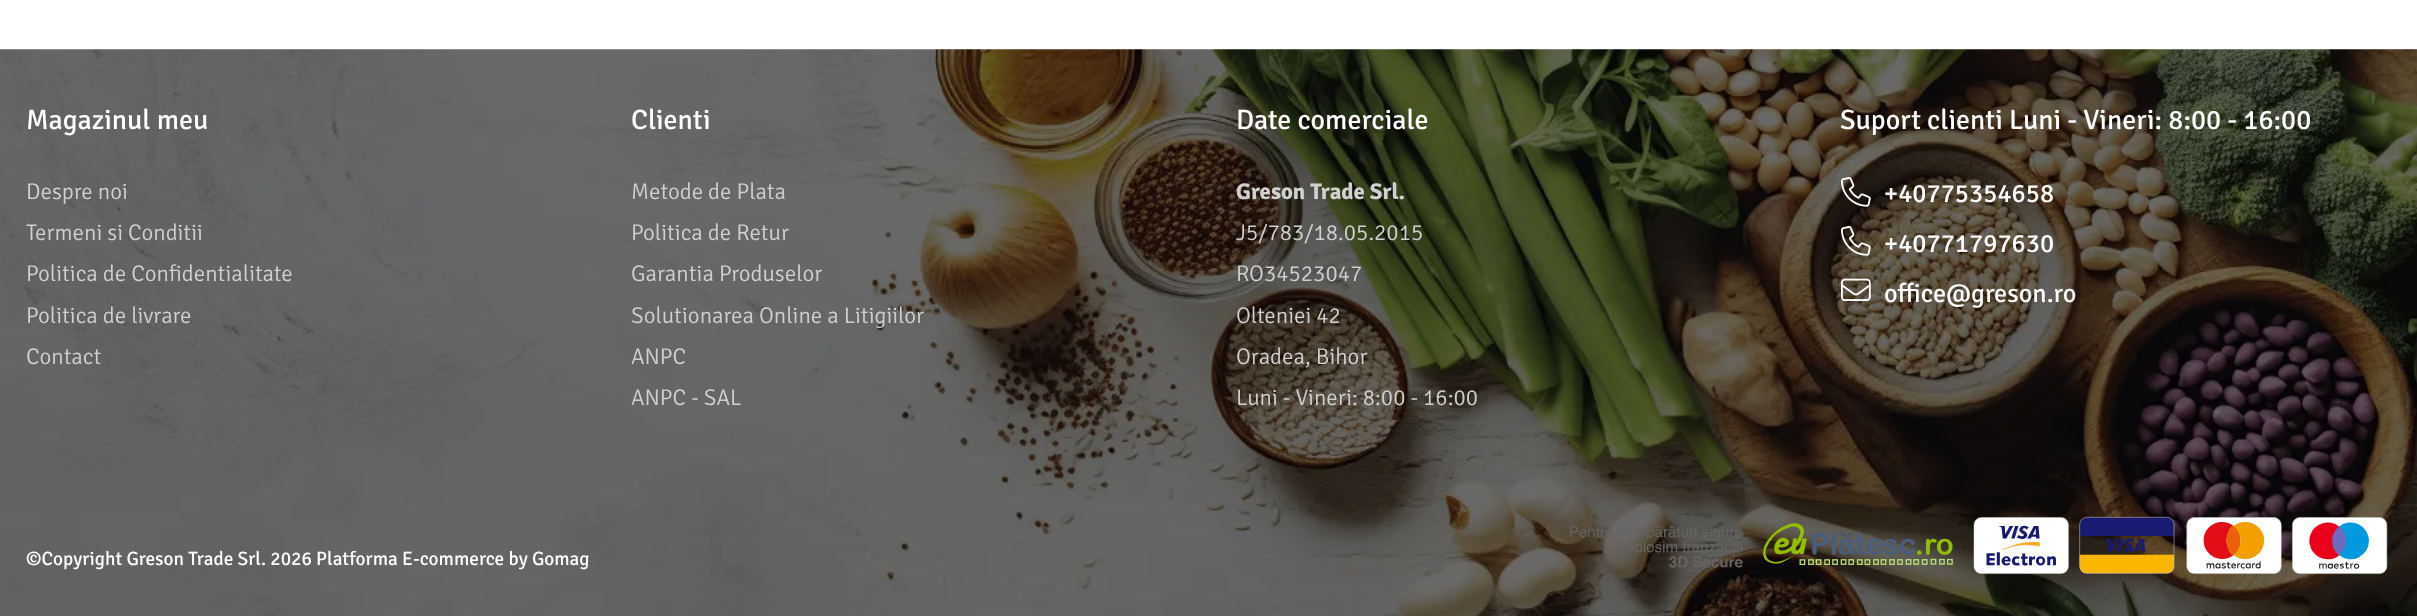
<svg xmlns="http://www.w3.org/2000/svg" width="2417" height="616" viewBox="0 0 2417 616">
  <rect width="100%" height="100%" fill="#ffffff"/>
  <image x="0" y="49" width="2417" height="567" href="img1.png"/>
  <text x="26" y="129" font-family="Signika" font-size="28" fill="#ffffff">Magazinul meu</text>
  <text x="26" y="199" font-family="Signika" font-size="22.75" font-weight="300" fill="#d0d0d0">Despre noi</text>
  <text x="26" y="240" font-family="Signika" font-size="22.75" font-weight="300" fill="#d0d0d0">Termeni si Conditii</text>
  <text x="26" y="281" font-family="Signika" font-size="22.75" font-weight="300" fill="#d0d0d0">Politica de Confidentialitate</text>
  <text x="26" y="323" font-family="Signika" font-size="22.75" font-weight="300" fill="#d0d0d0">Politica de livrare</text>
  <text x="26" y="364" font-family="Signika" font-size="22.75" font-weight="300" fill="#d0d0d0">Contact</text>
  <text x="631" y="129" font-family="Signika" font-size="28" fill="#ffffff">Clienti</text>
  <text x="631" y="199" font-family="Signika" font-size="22.75" font-weight="300" fill="#d0d0d0">Metode de Plata</text>
  <text x="631" y="240" font-family="Signika" font-size="22.75" font-weight="300" fill="#d0d0d0">Politica de Retur</text>
  <text x="631" y="281" font-family="Signika" font-size="22.75" font-weight="300" fill="#d0d0d0">Garantia Produselor</text>
  <text x="631" y="323" font-family="Signika" font-size="22.75" font-weight="300" fill="#d0d0d0">Solutionarea Online a Litigiilor</text>
  <text x="631" y="364" font-family="Signika" font-size="22.75" font-weight="300" fill="#d0d0d0">ANPC</text>
  <text x="631" y="405" font-family="Signika" font-size="22.75" font-weight="300" fill="#d0d0d0">ANPC - SAL</text>
  <text x="1236" y="129" font-family="Signika" font-size="28" fill="#ffffff">Date comerciale</text>
  <text x="1236" y="199" font-family="Signika" font-size="22.75" font-weight="bold" fill="#d0d0d0">Greson Trade Srl.</text>
  <text x="1236" y="240" font-family="Signika" font-size="22.75" font-weight="300" fill="#d0d0d0">J5/783/18.05.2015</text>
  <text x="1236" y="281" font-family="Signika" font-size="22.75" font-weight="300" fill="#d0d0d0">RO34523047</text>
  <text x="1236" y="323" font-family="Signika" font-size="22.75" font-weight="300" fill="#d0d0d0">Olteniei 42</text>
  <text x="1236" y="364" font-family="Signika" font-size="22.75" font-weight="300" fill="#d0d0d0">Oradea, Bihor</text>
  <text x="1236" y="405" font-family="Signika" font-size="22.75" font-weight="300" fill="#d0d0d0">Luni - Vineri: 8:00 - 16:00</text>
  <text x="1840" y="129" font-family="Signika" font-size="28" fill="#ffffff">Suport clienti Luni - Vineri: 8:00 - 16:00</text>
  <image x="1841" y="177" width="30" height="30" href="img2.png"/>
  <text x="1884" y="202" font-family="Signika" font-size="26.25" fill="#ffffff">+40775354658</text>
  <image x="1841" y="226" width="30" height="30" href="img3.png"/>
  <text x="1884" y="252" font-family="Signika" font-size="26.25" fill="#ffffff">+40771797630</text>
  <image x="1841" y="278" width="30" height="23" href="img4.png"/>
  <text x="1884" y="302" font-family="Signika" font-size="26.25" fill="#ffffff">office@greson.ro</text>
  <text x="26" y="565" font-family="Signika" font-size="19.25" fill="#ffffff">©Copyright Greson Trade Srl. 2026 Platforma E-commerce by Gomag</text>
  <image x="1570" y="516" width="818" height="59" href="img5.png"/>
</svg>
